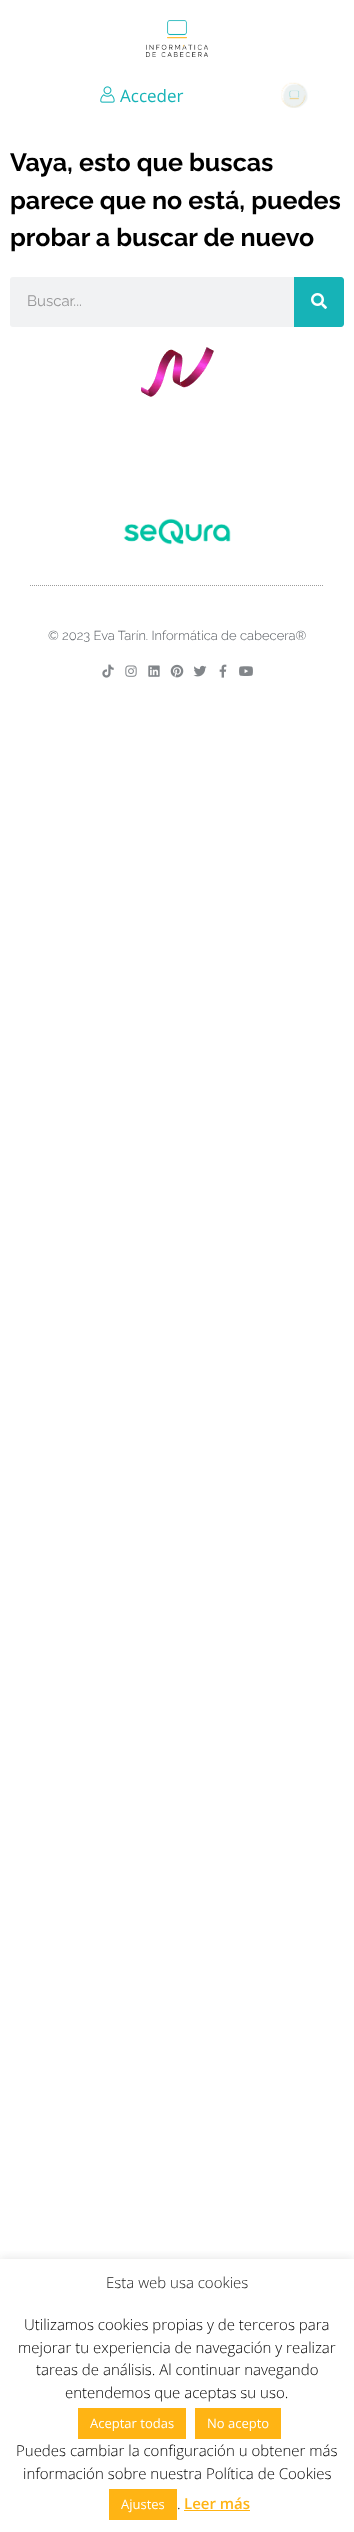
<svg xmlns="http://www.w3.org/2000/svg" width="354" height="2532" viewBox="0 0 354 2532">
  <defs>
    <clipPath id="clip1"><rect x="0" y="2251" width="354" height="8"/></clipPath>
    <filter id="blur1" x="-50%" y="-200%" width="200%" height="500%"><feGaussianBlur stdDeviation="5"/></filter>
  </defs>
  <rect width="100%" height="100%" fill="#ffffff"/>
  <image x="146" y="20" width="62" height="37" href="img1.png"/>
  <image x="100" y="86" width="15" height="17" href="img2.png"/>
  <text x="120" y="102" font-family="Open Sans" font-size="17" fill="#16b3b7">Acceder</text>
  <image x="281" y="82" width="27" height="26" href="img3.png"/>
  <text x="10" y="171" font-family="Raleway" font-size="25" font-weight="bold" fill="#000000">Vaya, esto que buscas</text>
  <text x="10" y="209" font-family="Raleway" font-size="25" font-weight="bold" fill="#000000">parece que no está, puedes</text>
  <text x="10" y="246" font-family="Raleway" font-size="25" font-weight="bold" fill="#000000">probar a buscar de nuevo</text>
  <rect x="10" y="277" width="334" height="50" rx="3" fill="#f1f2f3"/>
  <text x="27" y="306" font-family="Raleway" font-size="15" fill="#969697">Buscar...</text>
  <path d="M294 277H341C342.5 277 344 278.5 344 280V324C344 325.5 342.5 327 341 327H294Z" fill="#16b3b7"/>
  <image x="311" y="293" width="16" height="16" href="img4.png"/>
  <image x="141" y="347" width="73" height="50" href="img5.png"/>
  <path d="M30 585.5H324" fill="none" stroke="#9b9b9b" stroke-dasharray="1 1"/>
  <image x="123" y="518" width="108" height="27" href="img6.png"/>
  <text x="48" y="640" font-family="Raleway" font-size="13" font-weight="300" fill="#54595f">© 2023 Eva Tarín. Informática de cabecera®</text>
  <image x="102" y="664" width="12" height="14" href="img7.png"/>
  <image x="125" y="665" width="12" height="12" href="img8.png"/>
  <image x="148" y="665" width="12" height="12" href="img9.png"/>
  <image x="170" y="664" width="14" height="14" href="img10.png"/>
  <image x="193" y="665" width="14" height="12" href="img11.png"/>
  <image x="219" y="664" width="8" height="14" href="img12.png"/>
  <image x="239" y="666" width="14" height="10" href="img13.png"/>
  <g clip-path="url(#clip1)">
    <rect x="0" y="2258" width="354" height="273" fill="#acabab" fill-opacity="0.3" filter="url(#blur1)"/>
  </g>
  <text x="106" y="2288" font-family="Open Sans" font-size="15" font-weight="300" fill="#222222">Esta web usa cookies</text>
  <text x="24" y="2330" font-family="Open Sans" font-size="15" font-weight="300" fill="#000000">Utilizamos cookies propias y de terceros para</text>
  <text x="18" y="2353" font-family="Open Sans" font-size="15" font-weight="300" fill="#000000">mejorar tu experiencia de navegación y realizar</text>
  <text x="36" y="2375" font-family="Open Sans" font-size="15" font-weight="300" fill="#000000">tareas de análisis. Al continuar navegando</text>
  <text x="65" y="2398" font-family="Open Sans" font-size="15" font-weight="300" fill="#000000">entendemos que aceptas su uso.</text>
  <rect x="78" y="2408" width="108" height="31" fill="#ffb414"/>
  <text x="90" y="2428" font-family="Open Sans" font-size="13" fill="#ffffff">Aceptar todas</text>
  <rect x="195" y="2408" width="86" height="31" fill="#ffb414"/>
  <text x="207" y="2428" font-family="Open Sans" font-size="13" fill="#ffffff">No acepto</text>
  <text x="16" y="2456" font-family="Open Sans" font-size="15" font-weight="300" fill="#000000">Puedes cambiar la configuración u obtener más</text>
  <text x="23" y="2479" font-family="Open Sans" font-size="15" font-weight="300" fill="#000000">información sobre nuestra Política de Cookies</text>
  <rect x="109" y="2489" width="68" height="31" fill="#ffb414"/>
  <text x="121" y="2509" font-family="Open Sans" font-size="13" fill="#ffffff">Ajustes</text>
  <text x="177" y="2509" font-family="Open Sans" font-size="15" font-weight="300" fill="#000000">.</text>
  <text x="184" y="2509" font-family="Open Sans" font-size="15" font-weight="600" fill="#ffb414">Leer más</text>
  <rect x="184" y="2510" width="66" height="1" fill="#ffb414"/>
</svg>
